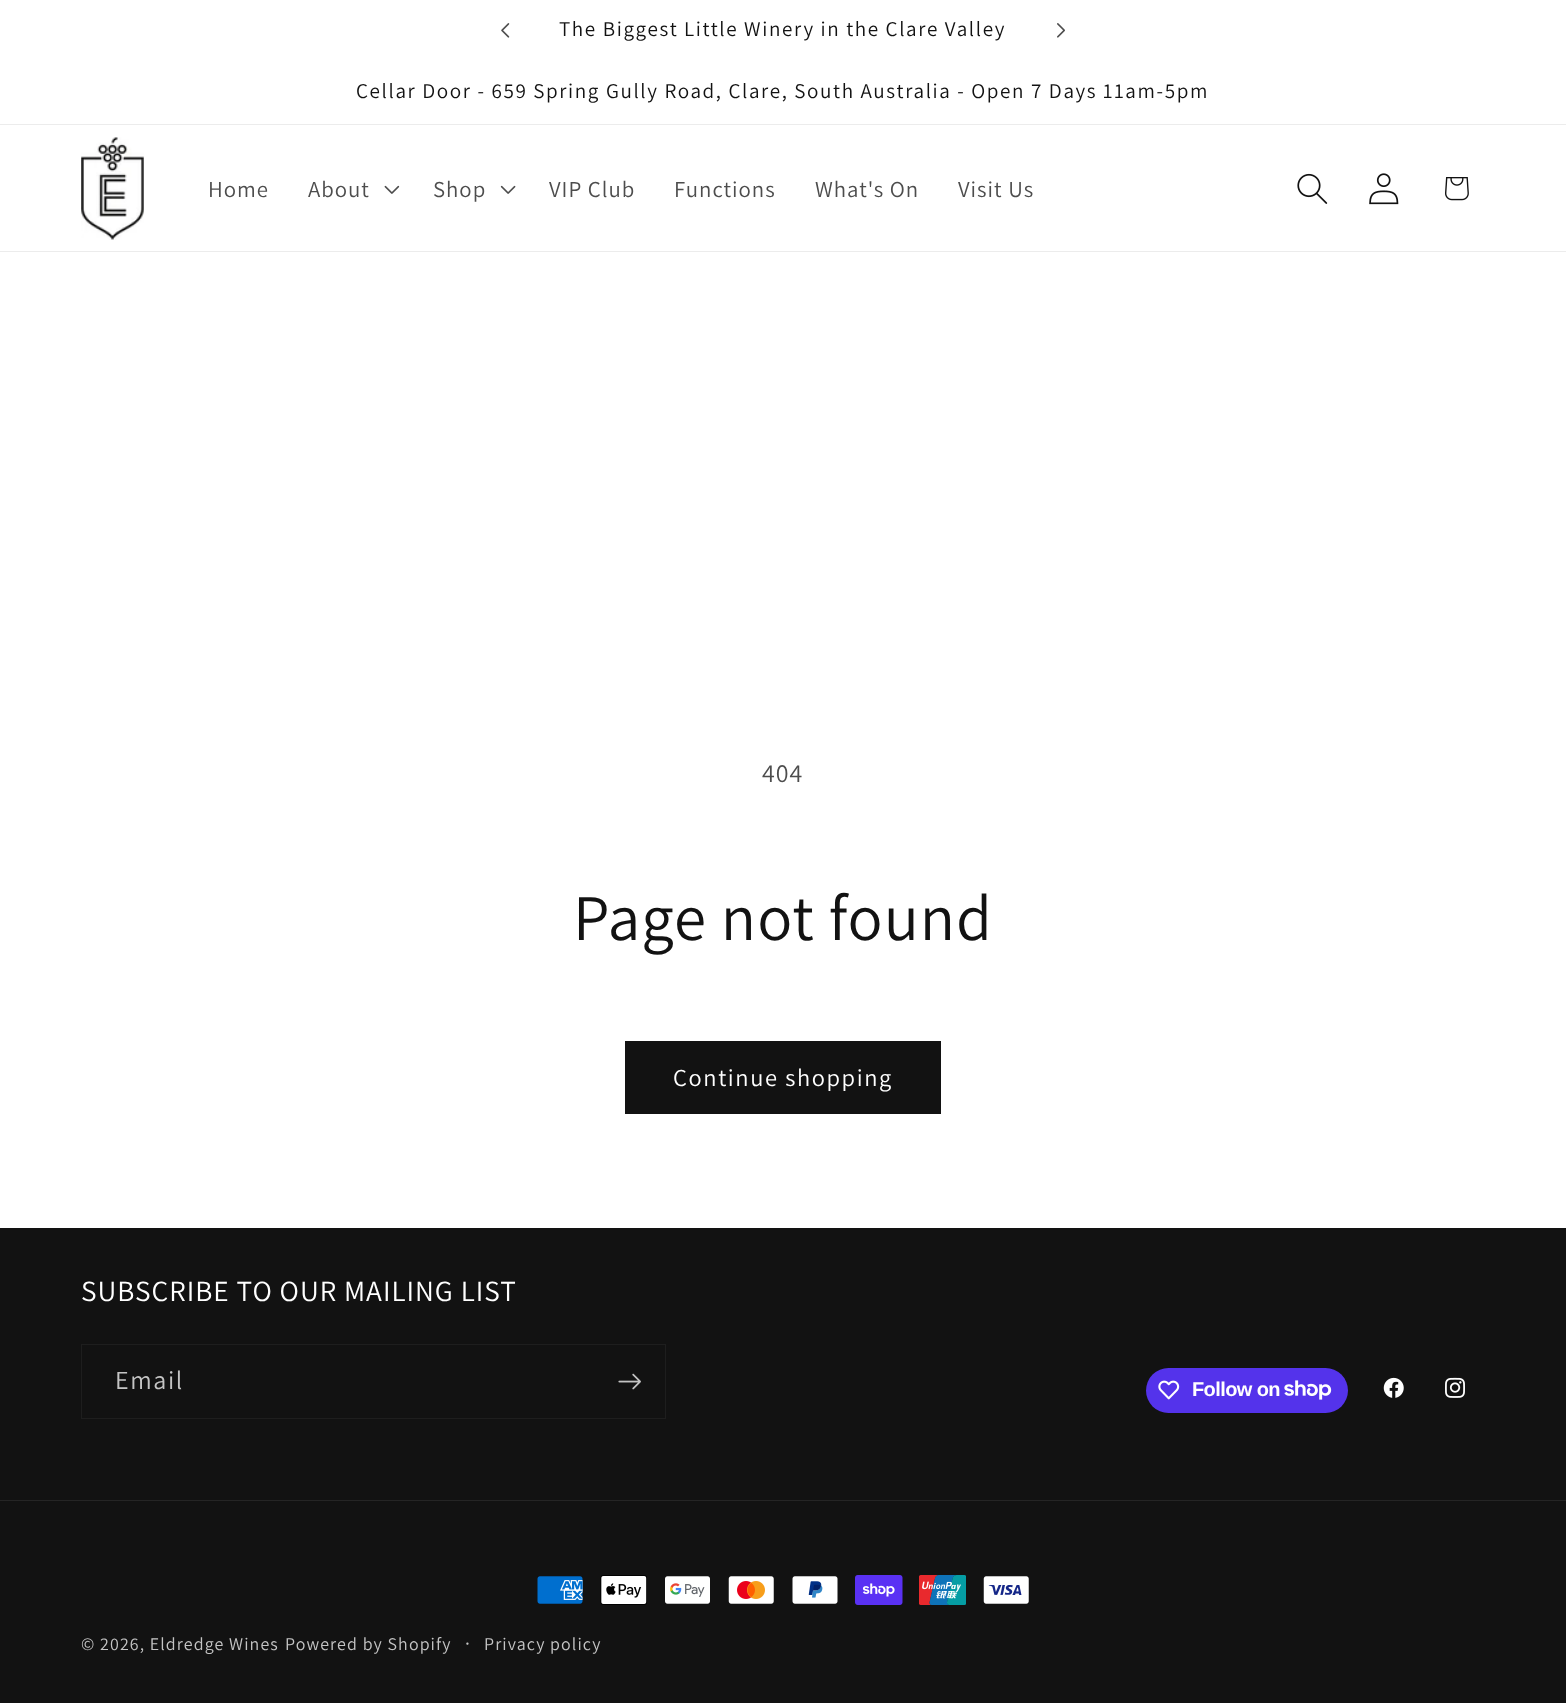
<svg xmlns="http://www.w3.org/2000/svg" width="1566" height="1703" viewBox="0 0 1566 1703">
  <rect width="100%" height="100%" fill="#ffffff"/>
  <image x="501" y="23" width="9" height="15" href="img1.png"/>
  <text x="559" y="36" font-family="Assistant" font-size="21.1" letter-spacing="1.62" fill="#121212">The Biggest Little Winery in the Clare Valley</text>
  <image x="1057" y="23" width="8" height="15" href="img2.png"/>
  <rect x="0" y="124" width="1566" height="1" fill="#ececec"/>
  <text x="356" y="98" font-family="Assistant" font-size="21.1" letter-spacing="1.62" fill="#121212">Cellar Door - 659 Spring Gully Road, Clare, South Australia - Open 7 Days 11am-5pm</text>
  <rect x="0" y="251" width="1566" height="1" fill="#ececec"/>
  <image x="81" y="137" width="63" height="103" href="img3.png"/>
  <text x="208" y="197" font-family="Assistant" font-size="22.75" letter-spacing="1" fill="#4d4d4d">Home</text>
  <text x="308" y="197" font-family="Assistant" font-size="22.75" letter-spacing="1" fill="#4d4d4d">About</text>
  <image x="384" y="185" width="16" height="9" href="img4.png"/>
  <text x="433" y="197" font-family="Assistant" font-size="22.75" letter-spacing="1" fill="#4d4d4d">Shop</text>
  <image x="500" y="185" width="16" height="9" href="img5.png"/>
  <text x="549" y="197" font-family="Assistant" font-size="22.75" letter-spacing="1" fill="#4d4d4d">VIP Club</text>
  <text x="674" y="197" font-family="Assistant" font-size="22.75" letter-spacing="1" fill="#4d4d4d">Functions</text>
  <text x="815" y="197" font-family="Assistant" font-size="22.75" letter-spacing="1" fill="#4d4d4d">What's On</text>
  <text x="958" y="197" font-family="Assistant" font-size="22.75" letter-spacing="1" fill="#4d4d4d">Visit Us</text>
  <image x="1297" y="173" width="31" height="31" href="img6.png"/>
  <image x="1369" y="173" width="30" height="32" href="img7.png"/>
  <image x="1445" y="177" width="24" height="24" href="img8.png"/>
  <text x="762" y="782" font-family="Assistant" font-size="26" letter-spacing="1" fill="#4d4d4d">404</text>
  <text x="573" y="940" font-family="Assistant" font-size="65" letter-spacing="1" fill="#121212">Page not found</text>
  <rect x="625" y="1041" width="316" height="73" fill="#121212"/>
  <text x="673" y="1086" font-family="Assistant" font-size="24.4" letter-spacing="1.62" fill="#ffffff">Continue shopping</text>
  <rect x="0" y="1228" width="1566" height="475" fill="#121212"/>
  <text x="81" y="1301" font-family="Assistant" font-size="29.25" letter-spacing="1" fill="#ffffff">SUBSCRIBE TO OUR MAILING LIST</text>
  <rect x="81.5" y="1344.5" width="584" height="74" fill="none" stroke="#1e1e1e"/>
  <text x="115" y="1389" font-family="Assistant" font-size="26" letter-spacing="1.62" fill="#c4c4c4">Email</text>
  <image x="618" y="1373" width="23" height="17" href="img9.png"/>
  <rect x="1146" y="1368" width="202" height="45" rx="22.5" fill="#5433eb"/>
  <image x="1158" y="1380" width="22" height="20" href="img10.png"/>
  <text x="1192" y="1396" font-family="Liberation Sans" font-size="20" font-weight="bold" letter-spacing="-0.6" fill="#ffffff">Follow on</text>
  <image x="1284" y="1380" width="48" height="20" href="img11.png"/>
  <image x="1383" y="1377" width="21" height="21" href="img12.png"/>
  <image x="1445" y="1377" width="20" height="21" href="img13.png"/>
  <rect x="0" y="1500" width="1566" height="1" fill="#252525"/>
  <image x="537" y="1576" width="46" height="28" href="img14.png"/>
  <image x="600" y="1575" width="47" height="30" href="img15.png"/>
  <image x="665" y="1576" width="45" height="28" href="img16.png"/>
  <image x="728" y="1576" width="46" height="28" href="img17.png"/>
  <image x="792" y="1576" width="46" height="28" href="img18.png"/>
  <image x="855" y="1575" width="48" height="30" href="img19.png"/>
  <image x="919" y="1575" width="47" height="30" href="img20.png"/>
  <image x="983" y="1576" width="46" height="28" href="img21.png"/>
  <text x="81" y="1650" font-family="Assistant" font-size="17.9" letter-spacing="1.1" fill="#c4c4c4">© 2026, Eldredge Wines</text>
  <text x="285" y="1650" font-family="Assistant" font-size="17.9" letter-spacing="1.1" fill="#c4c4c4">Powered by Shopify</text>
  <text x="465" y="1650" font-family="Assistant" font-size="20" letter-spacing="1.1" fill="#c4c4c4">·</text>
  <text x="484" y="1650" font-family="Assistant" font-size="17.9" letter-spacing="1.1" fill="#c4c4c4">Privacy policy</text>
</svg>
